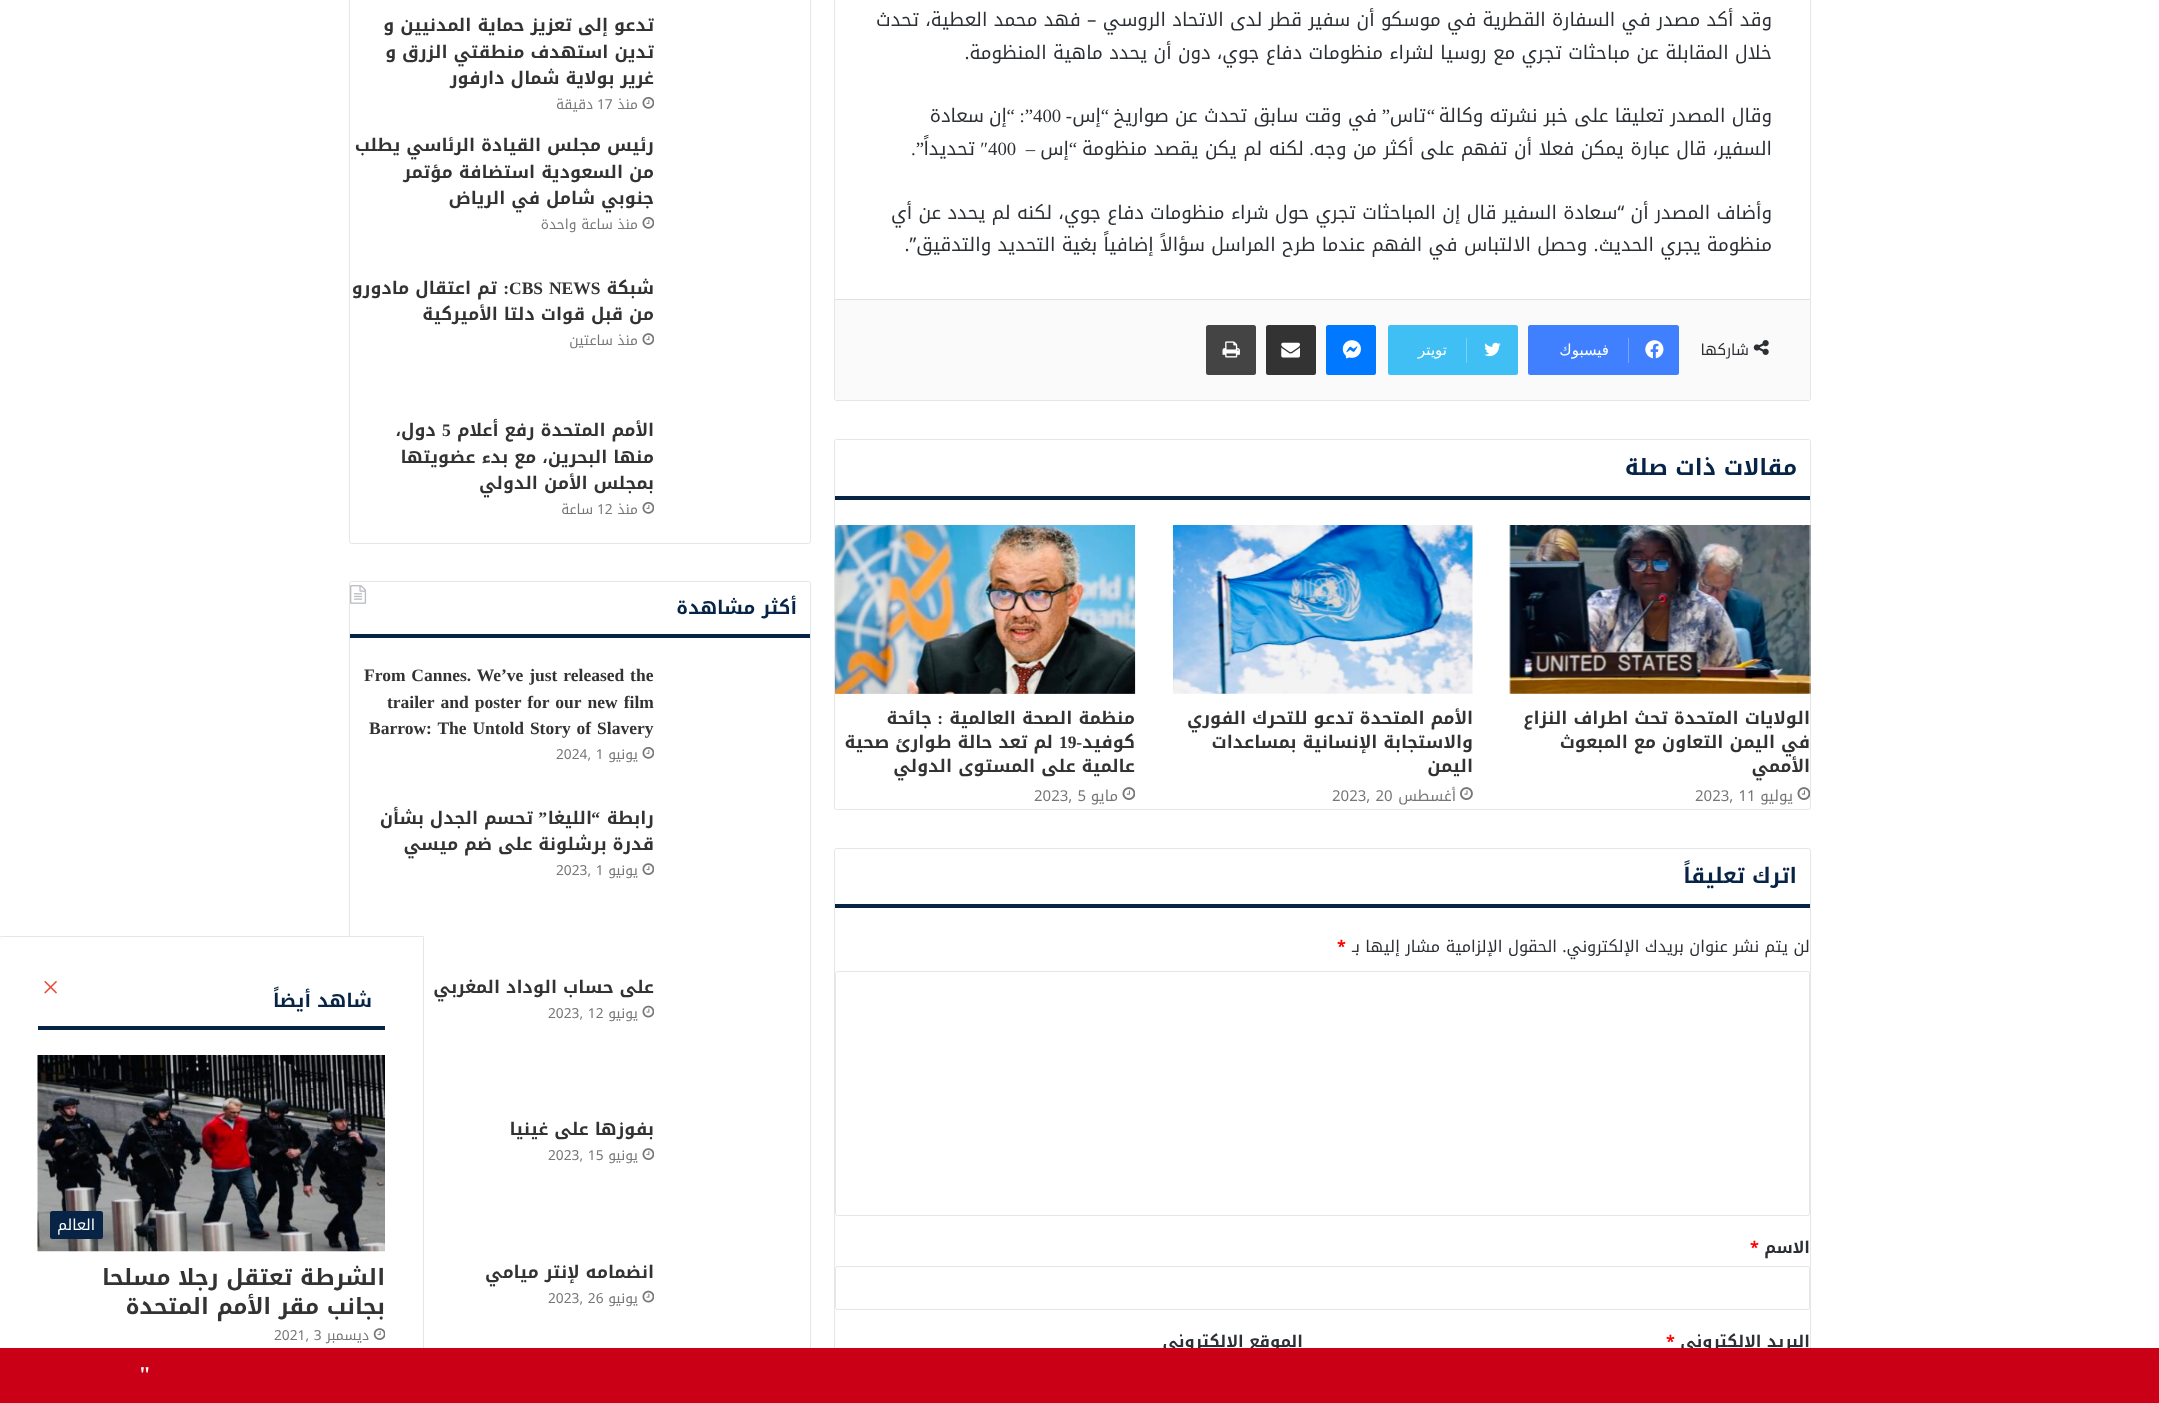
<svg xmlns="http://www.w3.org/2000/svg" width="2159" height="1403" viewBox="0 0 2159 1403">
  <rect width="100%" height="100%" fill="#ffffff"/>
  <path d="M1811-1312V399L1810 400V399V-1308Z" fill="#e6e6e6"/>
  <path d="M1810 400L1809 401H836L835 400H836H1809Z" fill="#e6e6e6"/>
  <path d="M835 400L834 399V-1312L835-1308V399L836 400Z" fill="#e6e6e6"/>
  <text x="1772" y="26" font-family="Noto Kufi Arabic" font-size="18.75" direction="rtl" fill="#2c2f34">وقد أكد مصدر في السفارة القطرية في موسكو أن سفير قطر لدى الاتحاد الروسي – فهد محمد العطية، تحدث</text>
  <text x="1772" y="59" font-family="Noto Kufi Arabic" font-size="18.75" direction="rtl" fill="#2c2f34">خلال المقابلة عن مباحثات تجري مع روسيا لشراء منظومات دفاع جوي، دون أن يحدد ماهية المنظومة.</text>
  <text x="1772" y="122" font-family="Noto Kufi Arabic" font-size="18.75" direction="rtl" fill="#2c2f34">وقال المصدر تعليقا على خبر نشرته وكالة</text>
  <text x="1435" y="122" font-family="Liberation Serif" font-size="18.75" direction="rtl" fill="#2c2f34">“</text>
  <text x="1426" y="122" font-family="Noto Kufi Arabic" font-size="18.75" direction="rtl" fill="#2c2f34">تاس</text>
  <text x="1390" y="122" font-family="Liberation Serif" font-size="18.75" direction="rtl" fill="#2c2f34">”</text>
  <text x="1377" y="122" font-family="Noto Kufi Arabic" font-size="18.75" direction="rtl" fill="#2c2f34">في وقت سابق تحدث عن صواريخ</text>
  <text x="1109" y="122" font-family="Liberation Serif" font-size="18.75" direction="rtl" fill="#2c2f34">“</text>
  <text x="1101" y="122" font-family="Noto Kufi Arabic" font-size="18.75" direction="rtl" fill="#2c2f34">إس</text>
  <text x="1033" y="122" font-family="Liberation Serif" font-size="18.75" fill="#2c2f34">400</text>
  <text x="1033" y="122" font-family="Liberation Serif" font-size="18.75" direction="rtl" fill="#2c2f34">”: “</text>
  <text x="1007" y="122" font-family="Noto Kufi Arabic" font-size="18.75" direction="rtl" fill="#2c2f34">إن</text>
  <text x="984" y="122" font-family="Noto Kufi Arabic" font-size="18.75" direction="rtl" fill="#2c2f34">سعادة</text>
  <text x="1072" y="122" font-family="Liberation Serif" font-size="18.75" direction="rtl" fill="#2c2f34">-</text>
  <text x="1772" y="155" word-spacing="0.25" font-family="Noto Kufi Arabic" font-size="18.75" direction="rtl" fill="#2c2f34">السفير، قال عبارة يمكن فعلا أن تفهم على أكثر من وجه</text>
  <text x="1304" y="155" word-spacing="0.25" font-family="Noto Kufi Arabic" font-size="18.75" direction="rtl" fill="#2c2f34">لكنه لم يكن يقصد منظومة</text>
  <text x="1077" y="155" font-family="Liberation Serif" font-size="18.75" direction="rtl" fill="#2c2f34">“</text>
  <text x="1069" y="155" font-family="Noto Kufi Arabic" font-size="18.75" direction="rtl" fill="#2c2f34">إس</text>
  <text x="988" y="155" font-family="Liberation Serif" font-size="18.75" fill="#2c2f34">400</text>
  <text x="988" y="155" font-family="Liberation Serif" font-size="18.75" direction="rtl" fill="#2c2f34">″</text>
  <text x="975" y="155" font-family="Noto Kufi Arabic" font-size="18.75" direction="rtl" fill="#2c2f34">تحديداً</text>
  <text x="924" y="155" font-family="Liberation Serif" font-size="18.75" direction="rtl" fill="#2c2f34">”.</text>
  <text x="1035" y="155" font-family="Liberation Serif" font-size="18.75" direction="rtl" fill="#2c2f34">–</text>
  <text x="1314" y="155" font-family="Liberation Serif" font-size="18.75" direction="rtl" fill="#2c2f34">.</text>
  <text x="1772" y="219" font-family="Noto Kufi Arabic" font-size="18.75" direction="rtl" fill="#2c2f34">وأضاف المصدر أن “سعادة السفير قال إن المباحثات تجري حول شراء منظومات دفاع جوي، لكنه لم يحدد عن أي</text>
  <text x="1772" y="251" font-family="Noto Kufi Arabic" font-size="18.75" direction="rtl" fill="#2c2f34">منظومة يجري الحديث. وحصل الالتباس في الفهم عندما طرح المراسل سؤالاً إضافياً بغية التحديد والتدقيق”.</text>
  <rect x="835" y="300" width="975" height="100" fill="#fafafa"/>
  <rect x="835" y="299" width="975" height="1" fill="#e1e1e1"/>
  <image x="1753" y="340" width="16" height="15" href="img1.png"/>
  <text x="1749" y="355" font-family="Noto Kufi Arabic" font-size="15" direction="rtl" fill="#2c2f34">شاركها</text>
  <rect x="1528" y="325" width="151" height="50" rx="2.5" fill="#4080ff"/>
  <image x="1645" y="340" width="19" height="19" href="img2.png"/>
  <rect x="1628" y="338" width="1" height="25" fill="#79a6ff"/>
  <text x="1609" y="355" font-family="DejaVu Sans" font-size="15" direction="rtl" fill="#ffffff">فيسبوك</text>
  <rect x="1388" y="325" width="130" height="50" rx="2.5" fill="#40bff5"/>
  <image x="1484" y="342" width="17" height="15" href="img3.png"/>
  <rect x="1466" y="338" width="1" height="25" fill="#79d2f8"/>
  <text x="1447" y="355" font-family="DejaVu Sans" font-size="15" direction="rtl" fill="#ffffff">تويتر</text>
  <rect x="1326" y="325" width="50" height="50" rx="2.5" fill="#0078ff"/>
  <image x="1342" y="340" width="19" height="19" href="img4.png"/>
  <rect x="1266" y="325" width="50" height="50" rx="2.5" fill="#333333"/>
  <image x="1281" y="342" width="19" height="16" href="img5.png"/>
  <rect x="1206" y="325" width="50" height="50" rx="2.5" fill="#444444"/>
  <image x="1222" y="341" width="18" height="17" href="img6.png"/>
  <rect x="834.5" y="439.5" width="976" height="370" rx="2" fill="none" stroke="#e6e6e6"/>
  <rect x="835" y="496" width="975" height="4" fill="#072446"/>
  <text x="1797" y="475" font-family="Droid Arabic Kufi" font-size="22.5" font-weight="bold" direction="rtl" fill="#072446">مقالات ذات صلة</text>
  <image x="1509" y="525" width="302" height="169" href="img7.png"/>
  <text x="1810" y="724" font-family="Droid Arabic Kufi" font-size="17.5" font-weight="bold" direction="rtl" fill="#333333">الولايات المتحدة تحث اطراف النزاع</text>
  <text x="1810" y="748" font-family="Droid Arabic Kufi" font-size="17.5" font-weight="bold" direction="rtl" fill="#333333">في اليمن التعاون مع المبعوث</text>
  <text x="1810" y="772" font-family="Droid Arabic Kufi" font-size="17.5" font-weight="bold" direction="rtl" fill="#333333">الأممي</text>
  <image x="1797" y="787" width="13" height="13" href="img8.png"/>
  <text x="1793" y="801" font-family="Noto Kufi Arabic" font-size="15" direction="rtl" fill="#767676">يوليو</text>
  <text x="1695" y="801" font-family="Noto Kufi Arabic" font-size="15" fill="#767676">2023, 11</text>
  <image x="1173" y="525" width="300" height="169" href="img9.png"/>
  <text x="1473" y="724" font-family="Droid Arabic Kufi" font-size="17.5" font-weight="bold" direction="rtl" fill="#333333">الأمم المتحدة تدعو للتحرك الفوري</text>
  <text x="1473" y="748" font-family="Droid Arabic Kufi" font-size="17.5" font-weight="bold" direction="rtl" fill="#333333">والاستجابة الإنسانية بمساعدات</text>
  <text x="1473" y="772" font-family="Droid Arabic Kufi" font-size="17.5" font-weight="bold" direction="rtl" fill="#333333">اليمن</text>
  <image x="1460" y="787" width="13" height="13" href="img10.png"/>
  <text x="1456" y="801" font-family="Noto Kufi Arabic" font-size="15" direction="rtl" fill="#767676">أغسطس</text>
  <text x="1332" y="801" font-family="Noto Kufi Arabic" font-size="15" fill="#767676">2023, 20</text>
  <image x="835" y="525" width="301" height="169" href="img11.png"/>
  <text x="1135" y="724" font-family="Droid Arabic Kufi" font-size="17.5" font-weight="bold" direction="rtl" fill="#333333">منظمة الصحة العالمية</text>
  <text x="943" y="724" font-family="Liberation Serif" font-size="17.5" font-weight="bold" direction="rtl" fill="#333333">:</text>
  <text x="932" y="724" font-family="Droid Arabic Kufi" font-size="17.5" font-weight="bold" direction="rtl" fill="#333333">جائحة</text>
  <text x="1135" y="748" font-family="Droid Arabic Kufi" font-size="17.5" font-weight="bold" direction="rtl" fill="#333333">كوفيد</text>
  <text x="1082" y="748" font-family="Liberation Serif" font-size="17.5" font-weight="bold" direction="rtl" fill="#333333">-</text>
  <text x="1059" y="748" font-family="Liberation Serif" font-size="17.5" font-weight="bold" fill="#333333">19</text>
  <text x="1053" y="748" font-family="Droid Arabic Kufi" font-size="17.5" font-weight="bold" direction="rtl" fill="#333333">لم تعد حالة طوارئ صحية</text>
  <text x="1135" y="772" font-family="Droid Arabic Kufi" font-size="17.5" font-weight="bold" direction="rtl" fill="#333333">عالمية على المستوى الدولي</text>
  <image x="1122" y="787" width="13" height="13" href="img8.png"/>
  <text x="1118" y="801" font-family="Noto Kufi Arabic" font-size="15" direction="rtl" fill="#767676">مايو</text>
  <text x="1034" y="801" font-family="Noto Kufi Arabic" font-size="15" fill="#767676">2023, 5</text>
  <rect x="834.5" y="848.5" width="976" height="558" rx="2" fill="none" stroke="#e6e6e6"/>
  <rect x="835" y="904" width="975" height="4" fill="#072446"/>
  <text x="1797" y="883" font-family="Droid Arabic Kufi" font-size="21.25" font-weight="bold" direction="rtl" fill="#072446">اترك تعليقاً</text>
  <text x="1810" y="952" font-family="Noto Kufi Arabic" font-size="16.25" direction="rtl" fill="#2c2f34">لن يتم نشر عنوان بريدك الإلكتروني.</text>
  <text x="1557" y="952" font-family="Noto Kufi Arabic" font-size="16.25" direction="rtl" fill="#2c2f34">الحقول الإلزامية مشار إليها بـ</text>
  <text x="1337" y="952" font-family="Noto Kufi Arabic" font-size="16.25" font-weight="bold" fill="#ff0000">*</text>
  <rect x="835.5" y="971.5" width="974" height="244" rx="2" fill="none" stroke="#e6e6e6"/>
  <text x="1810" y="1253" font-family="Noto Kufi Arabic" font-size="16.25" font-weight="bold" direction="rtl" fill="#2c2f34">الاسم</text>
  <text x="1750" y="1253" font-family="Noto Kufi Arabic" font-size="16.25" font-weight="bold" fill="#ff0000">*</text>
  <rect x="835.5" y="1266.5" width="974" height="43" rx="2" fill="none" stroke="#e6e6e6"/>
  <text x="1810" y="1347" font-family="Noto Kufi Arabic" font-size="16.25" font-weight="bold" direction="rtl" fill="#2c2f34">البريد الإلكتروني</text>
  <text x="1666" y="1347" font-family="Noto Kufi Arabic" font-size="16.25" font-weight="bold" fill="#ff0000">*</text>
  <text x="1303" y="1347" font-family="Noto Kufi Arabic" font-size="16.25" font-weight="bold" direction="rtl" fill="#2c2f34">الموقع الإلكتروني</text>
  <rect x="349.5" y="-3.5" width="461" height="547" rx="2" fill="none" stroke="#e6e6e6"/>
  <text x="654" y="31" font-family="Droid Arabic Kufi" font-size="17.5" font-weight="bold" direction="rtl" fill="#333333">تدعو إلى تعزيز حماية المدنيين و</text>
  <text x="654" y="58" font-family="Droid Arabic Kufi" font-size="17.5" font-weight="bold" direction="rtl" fill="#333333">تدين استهدف منطقتي الزرق و</text>
  <text x="654" y="84" font-family="Droid Arabic Kufi" font-size="17.5" font-weight="bold" direction="rtl" fill="#333333">غرير بولاية شمال دارفور</text>
  <image x="642" y="97" width="12" height="12" href="img12.png"/>
  <text x="638" y="109" font-family="Noto Kufi Arabic" font-size="13.75" direction="rtl" fill="#767676">منذ</text>
  <text x="597" y="109" font-family="Noto Kufi Arabic" font-size="13.75" fill="#767676">17</text>
  <text x="593" y="109" font-family="Noto Kufi Arabic" font-size="13.75" direction="rtl" fill="#767676">دقيقة</text>
  <text x="654" y="151" font-family="Droid Arabic Kufi" font-size="17.5" font-weight="bold" direction="rtl" fill="#333333">رئيس مجلس القيادة الرئاسي يطلب</text>
  <text x="654" y="178" font-family="Droid Arabic Kufi" font-size="17.5" font-weight="bold" direction="rtl" fill="#333333">من السعودية استضافة مؤتمر</text>
  <text x="654" y="204" font-family="Droid Arabic Kufi" font-size="17.5" font-weight="bold" direction="rtl" fill="#333333">جنوبي شامل في الرياض</text>
  <image x="642" y="217" width="12" height="12" href="img12.png"/>
  <text x="638" y="229" font-family="Noto Kufi Arabic" font-size="13.75" direction="rtl" fill="#767676">منذ ساعة واحدة</text>
  <text x="654" y="294" font-family="Droid Arabic Kufi" font-size="17.5" font-weight="bold" direction="rtl" fill="#333333">شبكة</text>
  <text x="509" y="294" word-spacing="1.5" font-family="Liberation Serif" font-size="17.5" font-weight="bold" fill="#333333">CBS NEWS</text>
  <text x="509" y="294" font-family="Liberation Serif" font-size="17.5" font-weight="bold" direction="rtl" fill="#333333">:</text>
  <text x="497" y="294" font-family="Droid Arabic Kufi" font-size="17.5" font-weight="bold" direction="rtl" fill="#333333">تم اعتقال مادورو</text>
  <text x="654" y="320" font-family="Droid Arabic Kufi" font-size="17.5" font-weight="bold" direction="rtl" fill="#333333">من قبل قوات دلتا الأميركية</text>
  <image x="642" y="333" width="12" height="12" href="img13.png"/>
  <text x="638" y="345" font-family="Noto Kufi Arabic" font-size="13.75" direction="rtl" fill="#767676">منذ ساعتين</text>
  <text x="654" y="436" font-family="Droid Arabic Kufi" font-size="17.5" font-weight="bold" direction="rtl" fill="#333333">الأمم المتحدة رفع أعلام</text>
  <text x="442" y="436" font-family="Liberation Serif" font-size="17.5" font-weight="bold" fill="#333333">5</text>
  <text x="436" y="436" font-family="Droid Arabic Kufi" font-size="17.5" font-weight="bold" direction="rtl" fill="#333333">دول،</text>
  <text x="654" y="463" font-family="Droid Arabic Kufi" font-size="17.5" font-weight="bold" direction="rtl" fill="#333333">منها البحرين، مع بدء عضويتها</text>
  <text x="654" y="489" font-family="Droid Arabic Kufi" font-size="17.5" font-weight="bold" direction="rtl" fill="#333333">بمجلس الأمن الدولي</text>
  <image x="642" y="502" width="12" height="12" href="img12.png"/>
  <text x="638" y="514" font-family="Noto Kufi Arabic" font-size="13.75" direction="rtl" fill="#767676">منذ</text>
  <text x="597" y="514" font-family="Noto Kufi Arabic" font-size="13.75" fill="#767676">12</text>
  <text x="593" y="514" font-family="Noto Kufi Arabic" font-size="13.75" direction="rtl" fill="#767676">ساعة</text>
  <rect x="349.5" y="581.5" width="461" height="777" rx="2" fill="none" stroke="#e6e6e6"/>
  <rect x="350" y="634" width="460" height="4" fill="#072446"/>
  <text x="797" y="614" font-family="Droid Arabic Kufi" font-size="18.75" font-weight="bold" direction="rtl" fill="#072446">أكثر مشاهدة</text>
  <image x="350" y="585" width="17" height="19" href="img14.png"/>
  <text x="364" y="681" word-spacing="1.5" font-family="Liberation Serif" font-size="17.5" font-weight="bold" fill="#333333">From Cannes. We’ve just released the</text>
  <text x="387" y="708" word-spacing="1.75" font-family="Liberation Serif" font-size="17.5" font-weight="bold" fill="#333333">trailer and poster for our new film</text>
  <text x="369" y="734" word-spacing="1.5" font-family="Liberation Serif" font-size="17.5" font-weight="bold" fill="#333333">Barrow: The Untold Story of Slavery</text>
  <image x="642" y="747" width="12" height="12" href="img12.png"/>
  <text x="638" y="759" font-family="Noto Kufi Arabic" font-size="13.75" direction="rtl" fill="#767676">يونيو</text>
  <text x="556" y="759" font-family="Noto Kufi Arabic" font-size="13.75" fill="#767676">2024, 1</text>
  <text x="654" y="824" font-family="Droid Arabic Kufi" font-size="17.5" font-weight="bold" direction="rtl" fill="#333333">رابطة</text>
  <text x="600" y="824" font-family="Liberation Serif" font-size="17.5" font-weight="bold" direction="rtl" fill="#333333">“</text>
  <text x="592" y="824" font-family="Droid Arabic Kufi" font-size="17.5" font-weight="bold" direction="rtl" fill="#333333">الليغا</text>
  <text x="547" y="824" font-family="Liberation Serif" font-size="17.5" font-weight="bold" direction="rtl" fill="#333333">”</text>
  <text x="533" y="824" font-family="Droid Arabic Kufi" font-size="17.5" font-weight="bold" direction="rtl" fill="#333333">تحسم الجدل بشأن</text>
  <text x="654" y="850" font-family="Droid Arabic Kufi" font-size="17.5" font-weight="bold" direction="rtl" fill="#333333">قدرة برشلونة على ضم ميسي</text>
  <image x="642" y="863" width="12" height="12" href="img13.png"/>
  <text x="638" y="875" font-family="Noto Kufi Arabic" font-size="13.75" direction="rtl" fill="#767676">يونيو</text>
  <text x="556" y="875" font-family="Noto Kufi Arabic" font-size="13.75" fill="#767676">2023, 1</text>
  <text x="654" y="993" font-family="Droid Arabic Kufi" font-size="17.5" font-weight="bold" direction="rtl" fill="#333333">على حساب الوداد المغربي</text>
  <image x="642" y="1005" width="12" height="13" href="img15.png"/>
  <text x="638" y="1018" font-family="Noto Kufi Arabic" font-size="13.75" direction="rtl" fill="#767676">يونيو</text>
  <text x="548" y="1018" font-family="Noto Kufi Arabic" font-size="13.75" fill="#767676">2023, 12</text>
  <text x="654" y="1135" font-family="Droid Arabic Kufi" font-size="17.5" font-weight="bold" direction="rtl" fill="#333333">بفوزها على غينيا</text>
  <image x="642" y="1148" width="12" height="12" href="img13.png"/>
  <text x="638" y="1160" font-family="Noto Kufi Arabic" font-size="13.75" direction="rtl" fill="#767676">يونيو</text>
  <text x="548" y="1160" font-family="Noto Kufi Arabic" font-size="13.75" fill="#767676">2023, 15</text>
  <text x="654" y="1278" font-family="Droid Arabic Kufi" font-size="17.5" font-weight="bold" direction="rtl" fill="#333333">انضمامه لإنتر ميامي</text>
  <image x="642" y="1290" width="12" height="13" href="img15.png"/>
  <text x="638" y="1303" font-family="Noto Kufi Arabic" font-size="13.75" direction="rtl" fill="#767676">يونيو</text>
  <text x="548" y="1303" font-family="Noto Kufi Arabic" font-size="13.75" fill="#767676">2023, 26</text>
  <path d="M1.5 936.5H423.5V1384.5H1.5C.5 1384.5-.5 1383.5-.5 1382.5V938.5C-.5 937.5 .5 936.5 1.5 936.5Z" fill="#ffffff" stroke="#e6e6e6"/>
  <rect x="38" y="1026" width="347" height="4" fill="#072446"/>
  <text x="372" y="1007" font-family="Droid Arabic Kufi" font-size="18.75" font-weight="bold" direction="rtl" fill="#072446">شاهد أيضاً</text>
  <image x="44" y="981" width="13" height="13" href="img16.png"/>
  <image x="37" y="1055" width="348" height="197" href="img17.png"/>
  <rect x="50" y="1211" width="53" height="28" rx="2.5" fill="#072446"/>
  <text x="95" y="1230" font-family="Noto Kufi Arabic" font-size="15" direction="rtl" fill="#ffffff">العالم</text>
  <text x="385" y="1285" font-family="Droid Arabic Kufi" font-size="22.5" font-weight="bold" direction="rtl" fill="#333333">الشرطة تعتقل رجلا مسلحا</text>
  <text x="385" y="1314" font-family="Droid Arabic Kufi" font-size="22.5" font-weight="bold" direction="rtl" fill="#333333">بجانب مقر الأمم المتحدة</text>
  <image x="373" y="1328" width="12" height="12" href="img18.png"/>
  <text x="369" y="1340" font-family="Noto Kufi Arabic" font-size="13.75" direction="rtl" fill="#767676">ديسمبر</text>
  <text x="274" y="1340" font-family="Noto Kufi Arabic" font-size="13.75" fill="#767676">2021, 3</text>
  <rect x="0" y="1348" width="2159" height="55" fill="#c90016"/>
  <text x="151" y="1382" font-family="Liberation Serif" font-size="22.5" font-weight="bold" direction="rtl" fill="#ffffff">"</text>
</svg>
